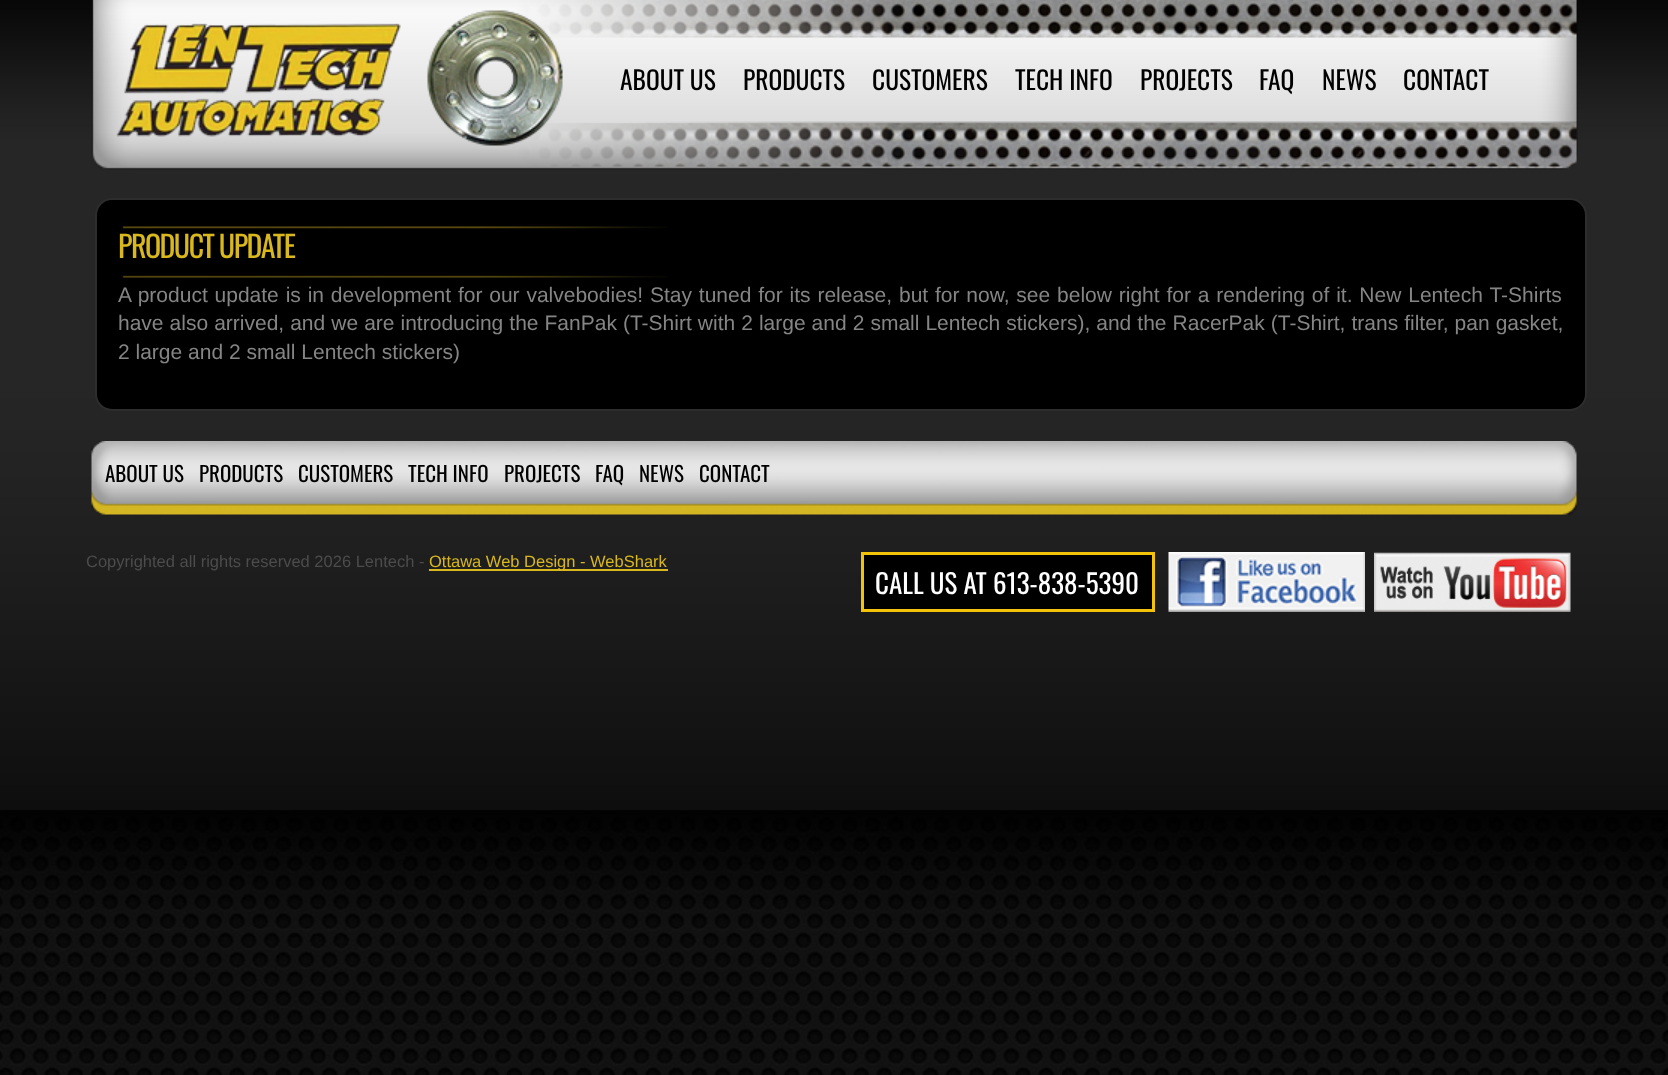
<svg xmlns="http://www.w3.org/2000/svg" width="1668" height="1075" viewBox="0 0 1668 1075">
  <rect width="100%" height="100%" fill="#ffffff"/>
  <image x="0" y="0" width="1668" height="1075" href="img1.png"/>
  <image x="91" y="0" width="1487" height="170" href="img2.png"/>
  <image x="116" y="23" width="285" height="114" href="img3.png"/>
  <image x="427" y="10" width="136" height="136" href="img4.png"/>
  <text x="620" y="90" font-family="Oswald" font-size="25.5" fill="#000000">ABOUT US</text>
  <text x="743" y="90" font-family="Oswald" font-size="25.5" fill="#000000">PRODUCTS</text>
  <text x="872" y="90" font-family="Oswald" font-size="25.5" fill="#000000">CUSTOMERS</text>
  <text x="1015" y="90" font-family="Oswald" font-size="25.5" fill="#000000">TECH INFO</text>
  <text x="1140" y="90" font-family="Oswald" font-size="25.5" fill="#000000">PROJECTS</text>
  <text x="1259" y="90" font-family="Oswald" font-size="25.5" fill="#000000">FAQ</text>
  <text x="1322" y="90" font-family="Oswald" font-size="25.5" fill="#000000">NEWS</text>
  <text x="1403" y="90" font-family="Oswald" font-size="25.5" fill="#000000">CONTACT</text>
  <rect x="96" y="199" width="1490" height="211" rx="16" fill="#000000" stroke="#2d2d2d" stroke-width="2"/>
  <image x="120" y="222" width="548" height="58" href="img5.png"/>
  <text x="118" y="258" font-family="Oswald" font-size="30" letter-spacing="-1.5" fill="#d9b81d">PRODUCT UPDATE</text>
  <text x="118" y="302" word-spacing="1" font-family="Liberation Sans" font-size="21" fill="#858585">A product update is in development for our valvebodies! Stay tuned for its release, but for now, see below right for a rendering of it. New Lentech T-Shirts</text>
  <text x="118" y="330" word-spacing="0.2" font-family="Liberation Sans" font-size="21" fill="#858585">have also arrived, and we are introducing the FanPak (T-Shirt with 2 large and 2 small Lentech stickers), and the RacerPak (T-Shirt, trans filter, pan gasket,</text>
  <text x="118" y="359" font-family="Liberation Sans" font-size="21" fill="#858585">2 large and 2 small Lentech stickers)</text>
  <image x="91" y="441" width="1486" height="74" href="img6.png"/>
  <text x="105" y="482" font-family="Oswald" font-size="21" fill="#000000">ABOUT US</text>
  <text x="199" y="482" font-family="Oswald" font-size="21" fill="#000000">PRODUCTS</text>
  <text x="298" y="482" font-family="Oswald" font-size="21" fill="#000000">CUSTOMERS</text>
  <text x="408" y="482" font-family="Oswald" font-size="21" fill="#000000">TECH INFO</text>
  <text x="504" y="482" font-family="Oswald" font-size="21" fill="#000000">PROJECTS</text>
  <text x="595" y="482" font-family="Oswald" font-size="21" fill="#000000">FAQ</text>
  <text x="639" y="482" font-family="Oswald" font-size="21" fill="#000000">NEWS</text>
  <text x="699" y="482" font-family="Oswald" font-size="21" fill="#000000">CONTACT</text>
  <text x="86" y="567" font-family="Liberation Sans" font-size="16.5" fill="#4c4c4c">Copyrighted all rights reserved 2026 Lentech -</text>
  <rect x="429" y="569" width="239" height="2" fill="#d9b81d"/>
  <text x="429" y="567" font-family="Liberation Sans" font-size="16.5" fill="#d9b81d">Ottawa Web Design - WebShark</text>
  <image x="1168" y="552" width="197" height="60" href="img7.png"/>
  <image x="1374" y="552" width="197" height="60" href="img8.png"/>
  <rect x="862.5" y="553.5" width="291" height="57" fill="#000000" stroke="#f2c309" stroke-width="3"/>
  <text x="875" y="594" font-family="Oswald" font-size="27" fill="#ffffff">CALL US AT 613-838-5390</text>
</svg>
